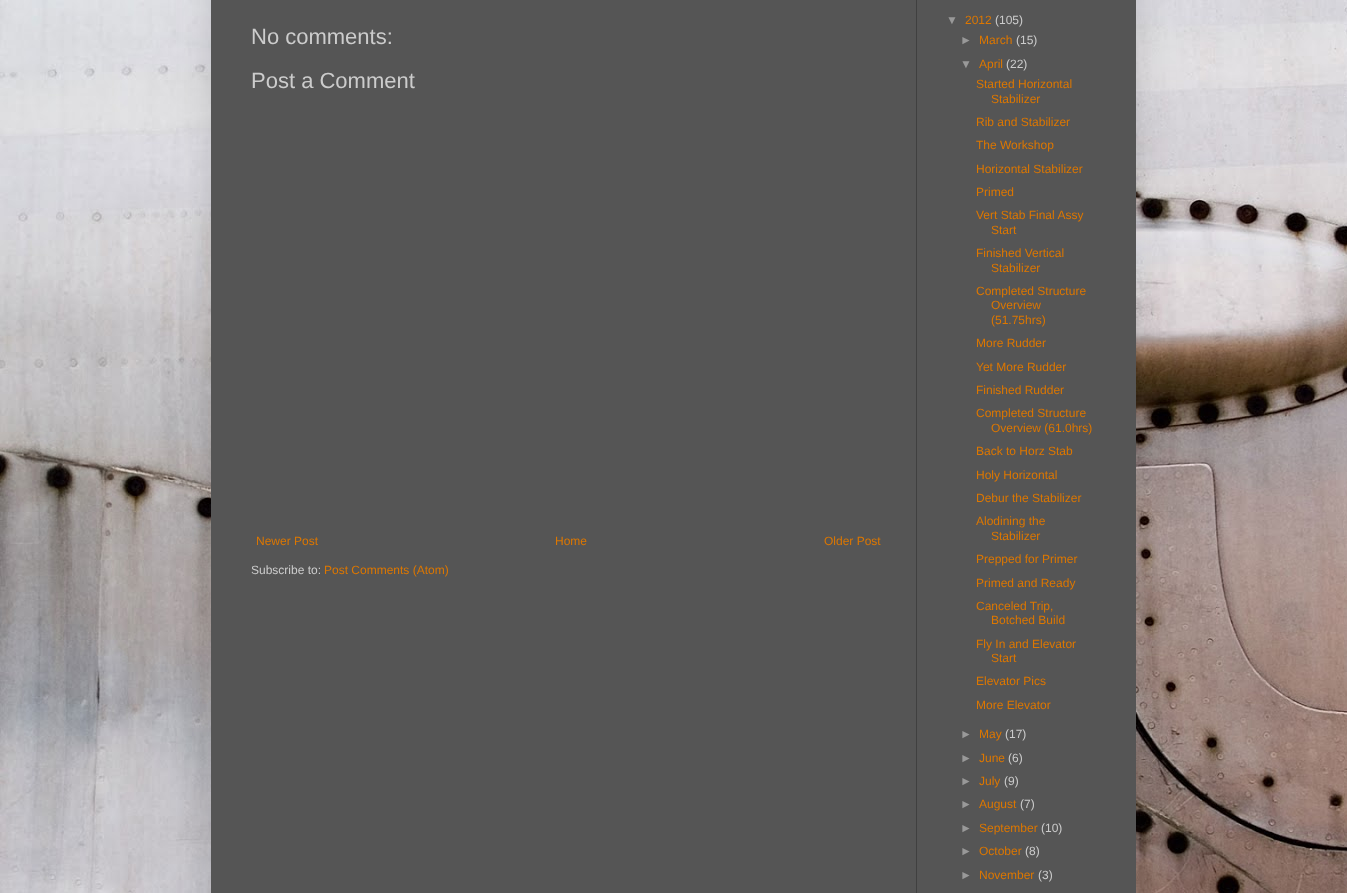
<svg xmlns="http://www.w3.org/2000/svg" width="1347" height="893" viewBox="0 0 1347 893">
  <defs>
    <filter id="blur1" x="-50%" y="-200%" width="200%" height="500%"><feGaussianBlur stdDeviation="20"/></filter>
  </defs>
  <rect width="100%" height="100%" fill="#ffffff"/>
  <image x="0" y="0" width="1347" height="893" href="img1.png"/>
  <rect x="211" y="-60" width="925" height="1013" fill="#000000" fill-opacity="0.15" filter="url(#blur1)"/>
  <rect x="211" y="0" width="925" height="893" fill="#555555"/>
  <rect x="916" y="0" width="1" height="893" fill="#404040"/>
  <text x="251" y="44" font-family="Liberation Sans" font-size="22" fill="#cccccc">No comments:</text>
  <text x="251" y="88" font-family="Liberation Sans" font-size="22" fill="#cccccc">Post a Comment</text>
  <text x="256" y="545" font-family="Liberation Sans" font-size="12" fill="#dd7700">Newer Post</text>
  <text x="555" y="545" font-family="Liberation Sans" font-size="12" fill="#dd7700">Home</text>
  <text x="824" y="545" font-family="Liberation Sans" font-size="12" fill="#dd7700">Older Post</text>
  <text x="251" y="574" font-family="Liberation Sans" font-size="12" fill="#cccccc">Subscribe to:</text>
  <text x="324" y="574" font-family="Liberation Sans" font-size="12" fill="#dd7700">Post Comments (Atom)</text>
  <text x="946" y="24" font-family="Liberation Sans" font-size="12" fill="#999999">▼</text>
  <text x="965" y="24" font-family="Liberation Sans" font-size="12" fill="#dd7700">2012</text>
  <text x="995" y="24" font-family="Liberation Sans" font-size="12" fill="#cccccc">(105)</text>
  <text x="960" y="44" font-family="Liberation Sans" font-size="12" fill="#999999">►</text>
  <text x="979" y="44" font-family="Liberation Sans" font-size="12" fill="#dd7700">March</text>
  <text x="1016" y="44" font-family="Liberation Sans" font-size="12" fill="#cccccc">(15)</text>
  <text x="960" y="68" font-family="Liberation Sans" font-size="12" fill="#999999">▼</text>
  <text x="979" y="68" font-family="Liberation Sans" font-size="12" fill="#dd7700">April</text>
  <text x="1006" y="68" font-family="Liberation Sans" font-size="12" fill="#cccccc">(22)</text>
  <text x="976" y="88" font-family="Liberation Sans" font-size="12" fill="#dd7700">Started Horizontal</text>
  <text x="991" y="103" font-family="Liberation Sans" font-size="12" fill="#dd7700">Stabilizer</text>
  <text x="976" y="126" font-family="Liberation Sans" font-size="12" fill="#dd7700">Rib and Stabilizer</text>
  <text x="976" y="149" font-family="Liberation Sans" font-size="12" fill="#dd7700">The Workshop</text>
  <text x="976" y="173" font-family="Liberation Sans" font-size="12" fill="#dd7700">Horizontal Stabilizer</text>
  <text x="976" y="196" font-family="Liberation Sans" font-size="12" fill="#dd7700">Primed</text>
  <text x="976" y="219" font-family="Liberation Sans" font-size="12" fill="#dd7700">Vert Stab Final Assy</text>
  <text x="991" y="234" font-family="Liberation Sans" font-size="12" fill="#dd7700">Start</text>
  <text x="976" y="257" font-family="Liberation Sans" font-size="12" fill="#dd7700">Finished Vertical</text>
  <text x="991" y="272" font-family="Liberation Sans" font-size="12" fill="#dd7700">Stabilizer</text>
  <text x="976" y="295" font-family="Liberation Sans" font-size="12" fill="#dd7700">Completed Structure</text>
  <text x="991" y="309" font-family="Liberation Sans" font-size="12" fill="#dd7700">Overview</text>
  <text x="991" y="324" font-family="Liberation Sans" font-size="12" fill="#dd7700">(51.75hrs)</text>
  <text x="976" y="347" font-family="Liberation Sans" font-size="12" fill="#dd7700">More Rudder</text>
  <text x="976" y="371" font-family="Liberation Sans" font-size="12" fill="#dd7700">Yet More Rudder</text>
  <text x="976" y="394" font-family="Liberation Sans" font-size="12" fill="#dd7700">Finished Rudder</text>
  <text x="976" y="417" font-family="Liberation Sans" font-size="12" fill="#dd7700">Completed Structure</text>
  <text x="991" y="432" font-family="Liberation Sans" font-size="12" fill="#dd7700">Overview (61.0hrs)</text>
  <text x="976" y="455" font-family="Liberation Sans" font-size="12" fill="#dd7700">Back to Horz Stab</text>
  <text x="976" y="479" font-family="Liberation Sans" font-size="12" fill="#dd7700">Holy Horizontal</text>
  <text x="976" y="502" font-family="Liberation Sans" font-size="12" fill="#dd7700">Debur the Stabilizer</text>
  <text x="976" y="525" font-family="Liberation Sans" font-size="12" fill="#dd7700">Alodining the</text>
  <text x="991" y="540" font-family="Liberation Sans" font-size="12" fill="#dd7700">Stabilizer</text>
  <text x="976" y="563" font-family="Liberation Sans" font-size="12" fill="#dd7700">Prepped for Primer</text>
  <text x="976" y="587" font-family="Liberation Sans" font-size="12" fill="#dd7700">Primed and Ready</text>
  <text x="976" y="610" font-family="Liberation Sans" font-size="12" fill="#dd7700">Canceled Trip,</text>
  <text x="991" y="624" font-family="Liberation Sans" font-size="12" fill="#dd7700">Botched Build</text>
  <text x="976" y="648" font-family="Liberation Sans" font-size="12" fill="#dd7700">Fly In and Elevator</text>
  <text x="991" y="662" font-family="Liberation Sans" font-size="12" fill="#dd7700">Start</text>
  <text x="976" y="685" font-family="Liberation Sans" font-size="12" fill="#dd7700">Elevator Pics</text>
  <text x="976" y="709" font-family="Liberation Sans" font-size="12" fill="#dd7700">More Elevator</text>
  <text x="960" y="738" font-family="Liberation Sans" font-size="12" fill="#999999">►</text>
  <text x="979" y="738" font-family="Liberation Sans" font-size="12" fill="#dd7700">May</text>
  <text x="1005" y="738" font-family="Liberation Sans" font-size="12" fill="#cccccc">(17)</text>
  <text x="960" y="762" font-family="Liberation Sans" font-size="12" fill="#999999">►</text>
  <text x="979" y="762" font-family="Liberation Sans" font-size="12" fill="#dd7700">June</text>
  <text x="1008" y="762" font-family="Liberation Sans" font-size="12" fill="#cccccc">(6)</text>
  <text x="960" y="785" font-family="Liberation Sans" font-size="12" fill="#999999">►</text>
  <text x="979" y="785" font-family="Liberation Sans" font-size="12" fill="#dd7700">July</text>
  <text x="1004" y="785" font-family="Liberation Sans" font-size="12" fill="#cccccc">(9)</text>
  <text x="960" y="808" font-family="Liberation Sans" font-size="12" fill="#999999">►</text>
  <text x="979" y="808" font-family="Liberation Sans" font-size="12" fill="#dd7700">August</text>
  <text x="1020" y="808" font-family="Liberation Sans" font-size="12" fill="#cccccc">(7)</text>
  <text x="960" y="832" font-family="Liberation Sans" font-size="12" fill="#999999">►</text>
  <text x="979" y="832" font-family="Liberation Sans" font-size="12" fill="#dd7700">September</text>
  <text x="1041" y="832" font-family="Liberation Sans" font-size="12" fill="#cccccc">(10)</text>
  <text x="960" y="855" font-family="Liberation Sans" font-size="12" fill="#999999">►</text>
  <text x="979" y="855" font-family="Liberation Sans" font-size="12" fill="#dd7700">October</text>
  <text x="1025" y="855" font-family="Liberation Sans" font-size="12" fill="#cccccc">(8)</text>
  <text x="960" y="879" font-family="Liberation Sans" font-size="12" fill="#999999">►</text>
  <text x="979" y="879" font-family="Liberation Sans" font-size="12" fill="#dd7700">November</text>
  <text x="1038" y="879" font-family="Liberation Sans" font-size="12" fill="#cccccc">(3)</text>
</svg>
